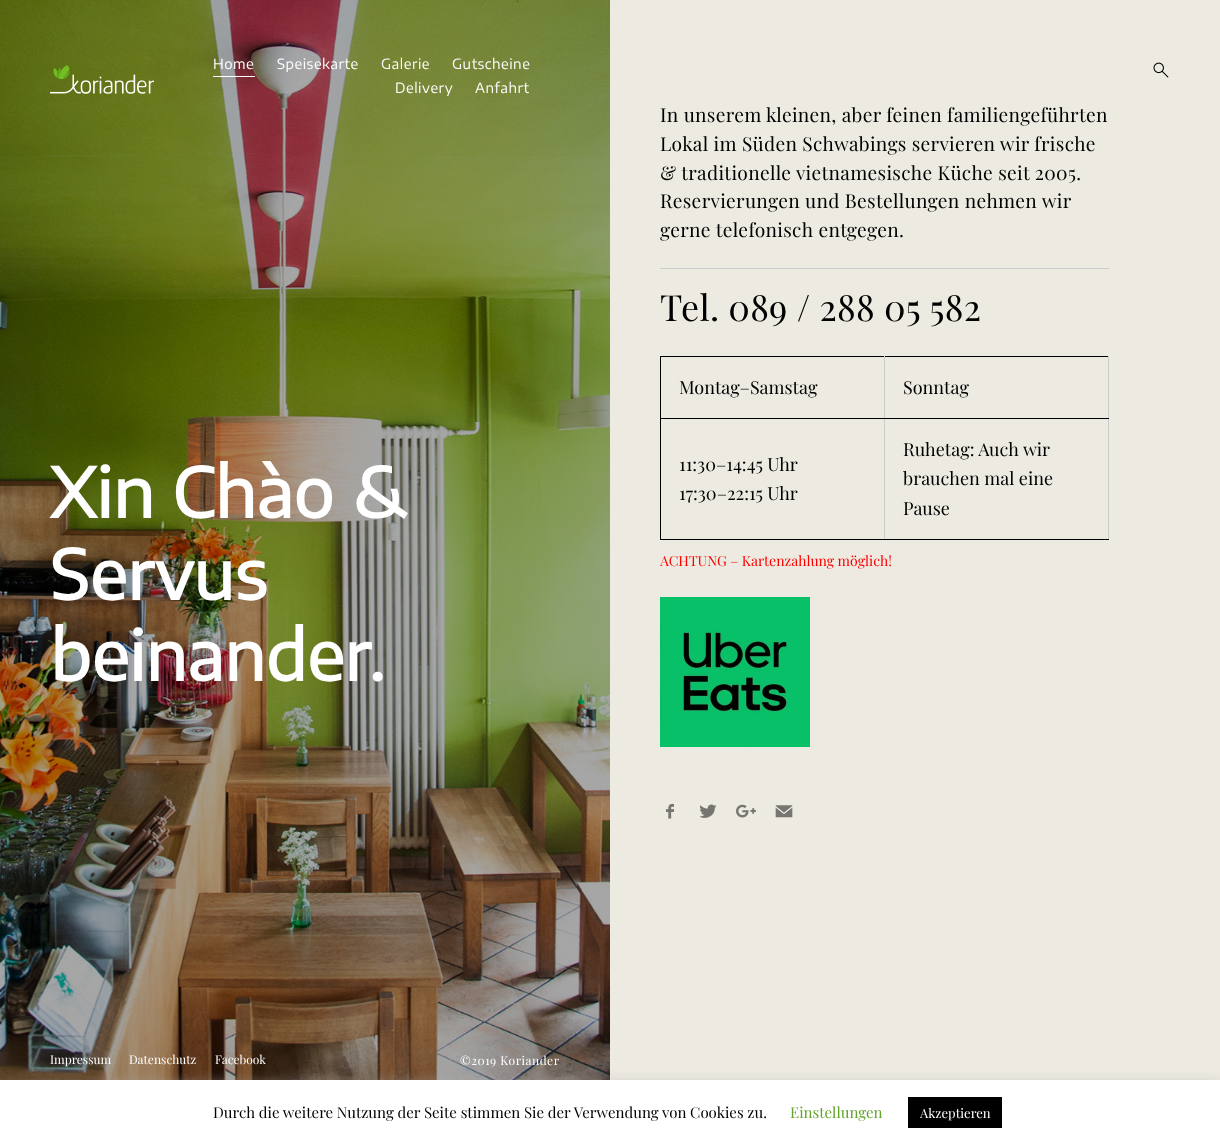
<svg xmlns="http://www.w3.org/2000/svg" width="1220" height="1145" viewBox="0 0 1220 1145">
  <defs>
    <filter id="blur1" x="-50%" y="-200%" width="200%" height="500%"><feGaussianBlur stdDeviation="5"/></filter>
  </defs>
  <rect width="100%" height="100%" fill="#eceae1"/>
  <image x="0" y="0" width="610" height="1080" href="img3.png"/>
  <image x="50" y="65" width="104" height="29" href="img1.png"/>
  <rect x="213" y="76" width="42" height="1" fill="#ffffff"/>
  <text x="213" y="69" font-family="Encode Sans Semi Expanded" font-size="14" letter-spacing="0.5" fill="#ffffff">Home</text>
  <text x="277" y="69" font-family="Encode Sans Semi Expanded" font-size="14" letter-spacing="0.5" fill="#ffffff">Speisekarte</text>
  <text x="381" y="69" font-family="Encode Sans Semi Expanded" font-size="14" letter-spacing="0.5" fill="#ffffff">Galerie</text>
  <text x="452" y="69" font-family="Encode Sans Semi Expanded" font-size="14" letter-spacing="0.5" fill="#ffffff">Gutscheine</text>
  <text x="395" y="93" font-family="Encode Sans Semi Expanded" font-size="14" letter-spacing="0.5" fill="#ffffff">Delivery</text>
  <text x="475" y="93" font-family="Encode Sans Semi Expanded" font-size="14" letter-spacing="0.5" fill="#ffffff">Anfahrt</text>
  <image x="1153" y="62" width="16" height="16" href="img2.png"/>
  <text x="50" y="518" font-family="Encode Sans Semi Expanded" font-size="68" font-weight="bold" fill="#ffffff">Xin Chào &amp;</text>
  <text x="50" y="600" font-family="Encode Sans Semi Expanded" font-size="68" font-weight="bold" fill="#ffffff">Servus</text>
  <text x="50" y="681" font-family="Encode Sans Semi Expanded" font-size="68" font-weight="bold" fill="#ffffff">beinander.</text>
  <text x="660" y="122" font-family="Playfair Display" font-size="19.2" letter-spacing="0.3" fill="#000000">In unserem kleinen, aber feinen familiengeführten</text>
  <text x="660" y="151" font-family="Playfair Display" font-size="19.2" letter-spacing="0.3" fill="#000000">Lokal im Süden Schwabings servieren wir frische</text>
  <text x="660" y="180" font-family="Playfair Display" font-size="19.2" letter-spacing="0.3" fill="#000000">&amp; traditionelle vietnamesische Küche seit 2005.</text>
  <text x="660" y="208" font-family="Playfair Display" font-size="19.2" letter-spacing="0.3" fill="#000000">Reservierungen und Bestellungen nehmen wir</text>
  <text x="660" y="237" font-family="Playfair Display" font-size="19.2" letter-spacing="0.3" fill="#000000">gerne telefonisch entgegen.</text>
  <rect x="660" y="268" width="449" height="1" fill="#cccccc"/>
  <text x="660" y="321" font-family="Playfair Display" font-size="36" letter-spacing="0.2" fill="#000000">Tel. 089 / 288 05 582</text>
  <rect x="660" y="356" width="449" height="1" fill="#000000"/>
  <rect x="1108" y="418" width="1" height="122" fill="#cccccc"/>
  <rect x="1108" y="356" width="1" height="63" fill="#cccccc"/>
  <rect x="884" y="539" width="225" height="1" fill="#000000"/>
  <rect x="884" y="418" width="1" height="122" fill="#cccccc"/>
  <rect x="884" y="418" width="225" height="1" fill="#000000"/>
  <rect x="884" y="356" width="1" height="63" fill="#cccccc"/>
  <rect x="660" y="539" width="225" height="1" fill="#000000"/>
  <rect x="660" y="418" width="1" height="122" fill="#000000"/>
  <rect x="660" y="418" width="225" height="1" fill="#000000"/>
  <rect x="660" y="356" width="1" height="63" fill="#000000"/>
  <text x="679" y="394" font-family="Playfair Display" font-size="18" fill="#000000">Montag–Samstag</text>
  <text x="903" y="394" font-family="Playfair Display" font-size="18" fill="#000000">Sonntag</text>
  <text x="679" y="471" font-family="Playfair Display" font-size="18" fill="#000000">11:30–14:45 Uhr</text>
  <text x="679" y="500" font-family="Playfair Display" font-size="18" fill="#000000">17:30–22:15 Uhr</text>
  <text x="903" y="456" font-family="Playfair Display" font-size="18" fill="#000000">Ruhetag: Auch wir</text>
  <text x="903" y="485" font-family="Playfair Display" font-size="18" fill="#000000">brauchen mal eine</text>
  <text x="903" y="515" font-family="Playfair Display" font-size="18" fill="#000000">Pause</text>
  <text x="660" y="566" font-family="Playfair Display" font-size="14" fill="#ff0000">ACHTUNG – Kartenzahlung möglich!</text>
  <image x="660" y="597" width="150" height="150" href="img4.png"/>
  <image x="666" y="803" width="8" height="16" href="img5.png"/>
  <image x="699" y="804" width="18" height="14" href="img6.png"/>
  <image x="736" y="804" width="20" height="14" href="img7.png"/>
  <image x="775" y="805" width="18" height="13" href="img8.png"/>
  <text x="50" y="1064" font-family="Playfair Display" font-size="12" fill="#ffffff">Impressum</text>
  <text x="129" y="1064" font-family="Playfair Display" font-size="12" fill="#ffffff">Datenschutz</text>
  <text x="215" y="1064" font-family="Playfair Display" font-size="12" fill="#ffffff">Facebook</text>
  <text x="460" y="1065" font-family="Playfair Display" font-size="12" letter-spacing="0.5" fill="#ffffff">©2019 Koriander</text>
  <rect x="0" y="1079" width="1220" height="65" fill="#acabab" fill-opacity="0.3" filter="url(#blur1)"/>
  <rect x="0" y="1080" width="1220" height="65" fill="#ffffff"/>
  <text x="213" y="1118" font-family="Playfair Display" font-size="15" fill="#000000">Durch die weitere Nutzung der Seite stimmen Sie der Verwendung von Cookies zu.</text>
  <text x="790" y="1118" font-family="Playfair Display" font-size="15" fill="#62a329">Einstellungen</text>
  <rect x="908" y="1097" width="94" height="31" fill="#000000"/>
  <text x="920" y="1118" font-family="Playfair Display" font-size="13" fill="#ffffff">Akzeptieren</text>
</svg>
